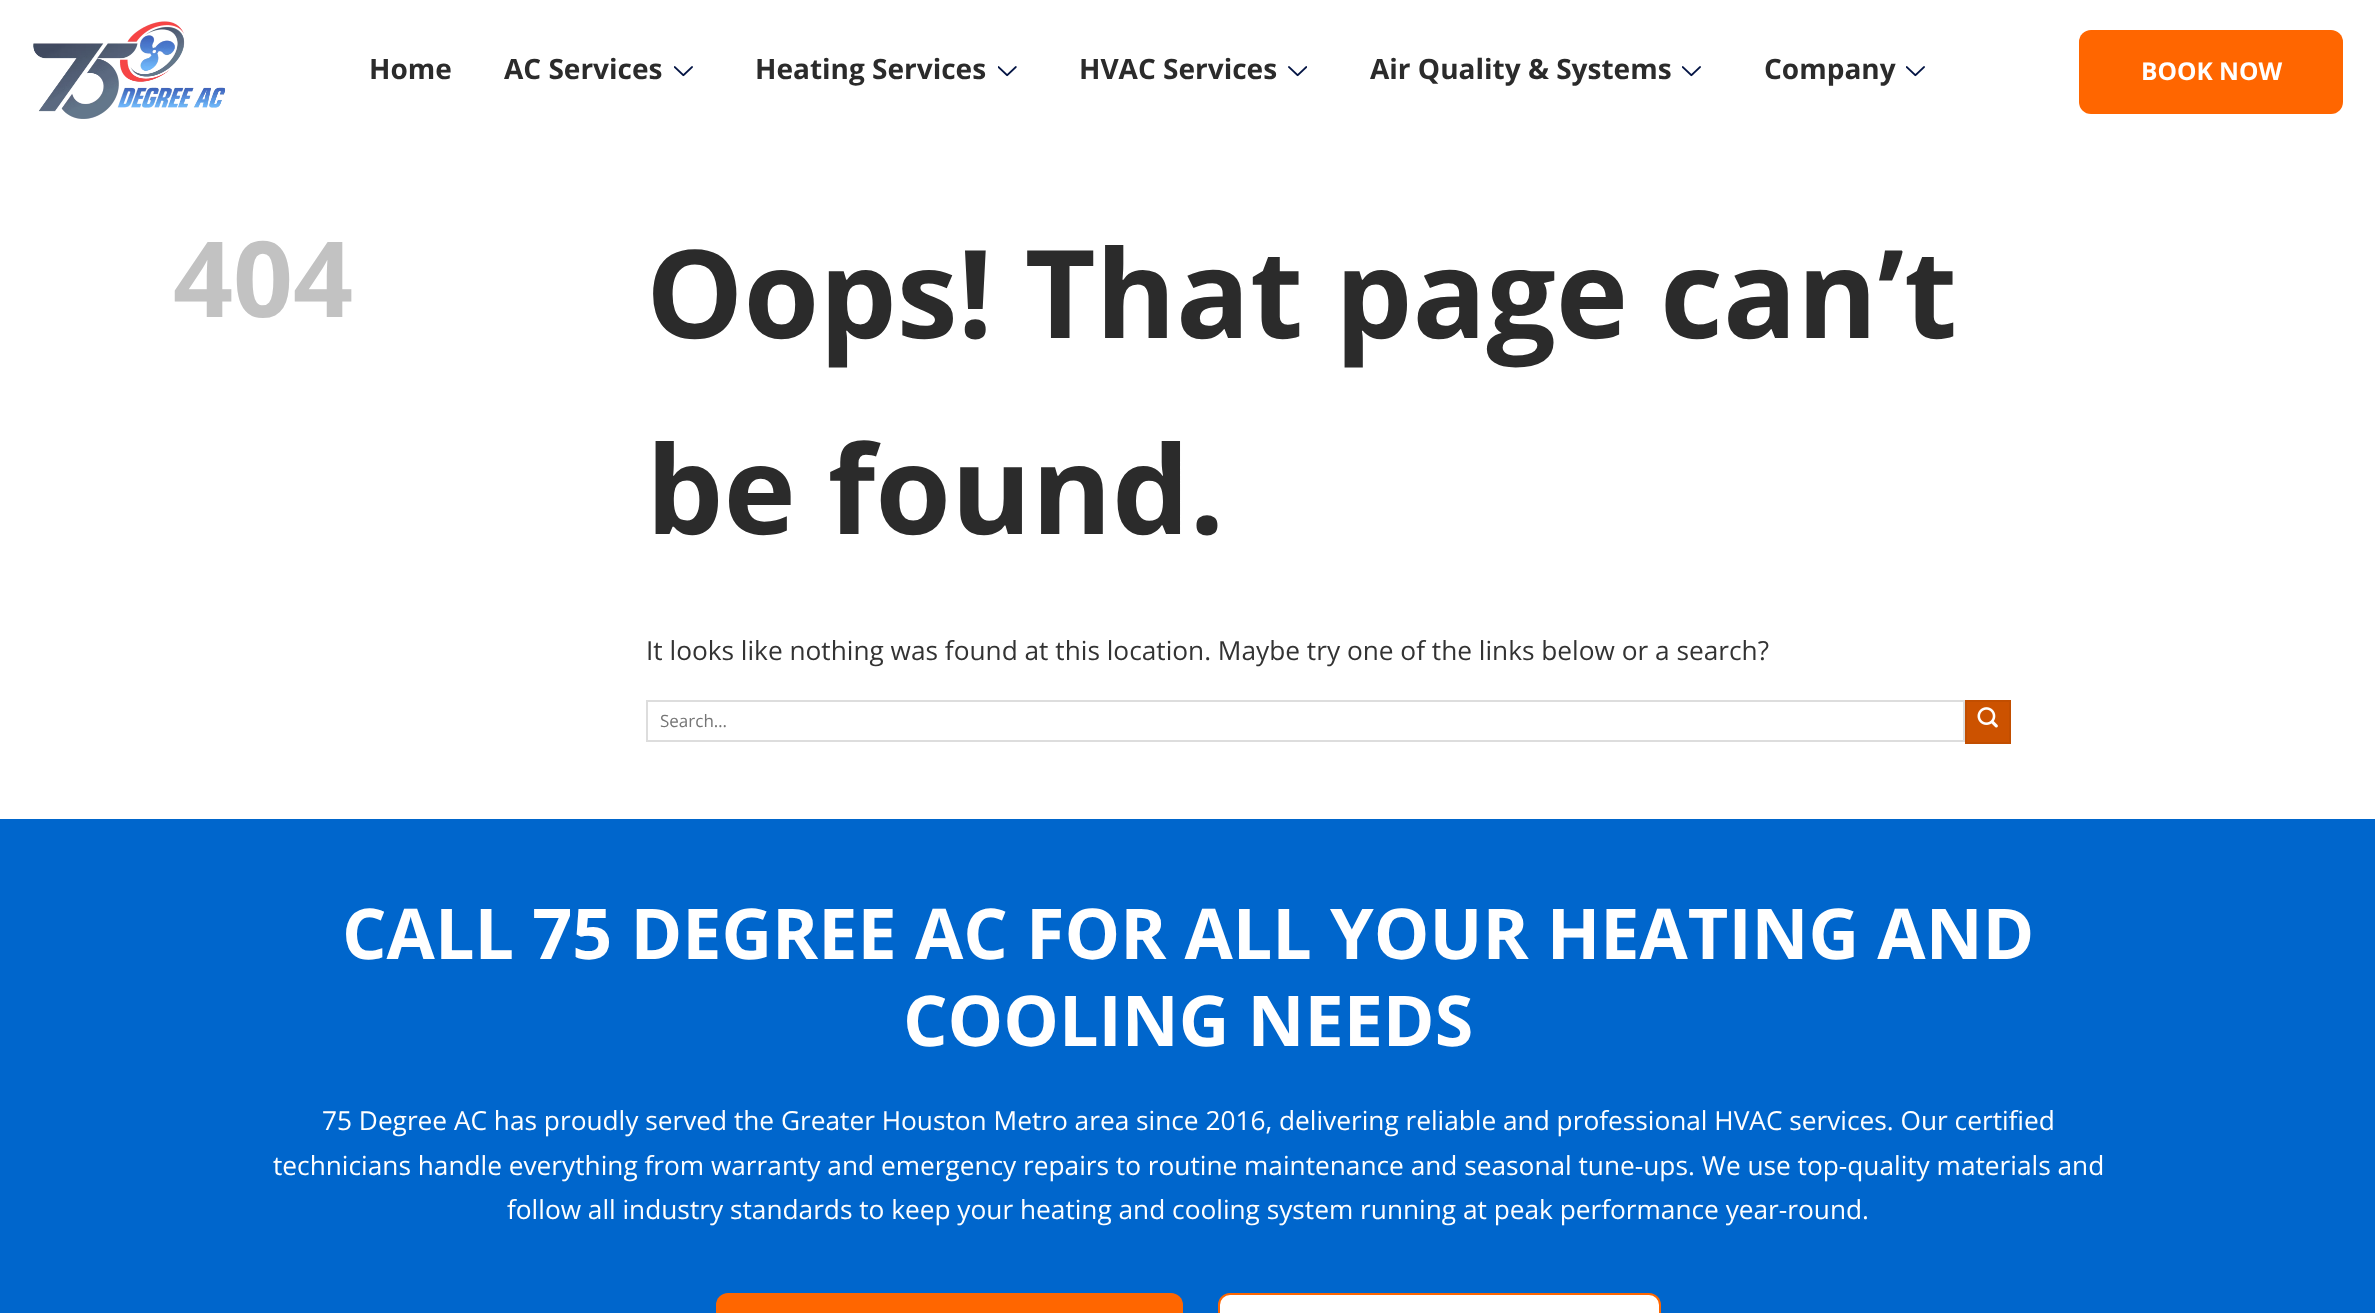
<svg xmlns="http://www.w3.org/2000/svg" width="2375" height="1313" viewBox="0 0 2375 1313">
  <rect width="100%" height="100%" fill="#ffffff"/>
  <image x="33" y="21" width="193" height="98" href="img1.png"/>
  <text x="369" y="79" font-family="Open Sans" font-size="28" font-weight="bold" fill="#2b2b2b">Home</text>
  <text x="504" y="79" font-family="Open Sans" font-size="28" font-weight="bold" fill="#2b2b2b">AC Services</text>
  <image x="674" y="66" width="19" height="11" href="img2.png"/>
  <text x="755" y="79" font-family="Open Sans" font-size="28" font-weight="bold" fill="#2b2b2b">Heating Services</text>
  <image x="998" y="66" width="19" height="11" href="img3.png"/>
  <text x="1079" y="79" font-family="Open Sans" font-size="28" font-weight="bold" fill="#2b2b2b">HVAC Services</text>
  <image x="1288" y="66" width="19" height="11" href="img4.png"/>
  <text x="1370" y="79" font-family="Open Sans" font-size="28" font-weight="bold" fill="#2b2b2b">Air Quality &amp; Systems</text>
  <image x="1682" y="66" width="19" height="11" href="img2.png"/>
  <text x="1764" y="79" font-family="Open Sans" font-size="28" font-weight="bold" fill="#2b2b2b">Company</text>
  <image x="1906" y="66" width="19" height="11" href="img2.png"/>
  <rect x="2079" y="30" width="264" height="84" rx="12" fill="#ff6600"/>
  <text x="2141" y="80" font-family="Open Sans" font-size="24.5" font-weight="bold" fill="#ffffff">BOOK NOW</text>
  <text x="173" y="317" font-family="Open Sans" font-size="105" font-weight="bold" fill="#c2c2c2">404</text>
  <text x="646" y="338" font-family="Open Sans" font-size="122.5" font-weight="bold" fill="#2b2b2b">Oops! That page can’t</text>
  <text x="646" y="534" font-family="Open Sans" font-size="122.5" font-weight="bold" fill="#2b2b2b">be found.</text>
  <text x="646" y="660" font-family="Open Sans" font-size="26.25" fill="#333333">It looks like nothing was found at this location. Maybe try one of the links below or a search?</text>
  <rect x="647" y="701" width="1317" height="40" fill="none" stroke="#dddddd" stroke-width="2"/>
  <text x="660" y="727" font-family="Open Sans" font-size="17" fill="#757575">Search…</text>
  <rect x="1966" y="701" width="44" height="42" fill="#cc5200" stroke="#c24e00" stroke-width="2"/>
  <image x="1977" y="707" width="21" height="21" href="img5.png"/>
  <rect x="0" y="819" width="2375" height="494" fill="#0066cc"/>
  <text x="342" y="959" font-family="Open Sans" font-size="70" font-weight="bold" fill="#ffffff">CALL 75 DEGREE AC FOR ALL YOUR HEATING AND</text>
  <text x="903" y="1046" font-family="Open Sans" font-size="70" font-weight="bold" fill="#ffffff">COOLING NEEDS</text>
  <text x="322" y="1130" font-family="Open Sans" font-size="26.25" fill="#ffffff">75 Degree AC has proudly served the Greater Houston Metro area since 2016, delivering reliable and professional HVAC services. Our certified</text>
  <text x="273" y="1175" font-family="Open Sans" font-size="26.25" fill="#ffffff">technicians handle everything from warranty and emergency repairs to routine maintenance and seasonal tune-ups. We use top-quality materials and</text>
  <text x="507" y="1219" font-family="Open Sans" font-size="26.25" fill="#ffffff">follow all industry standards to keep your heating and cooling system running at peak performance year-round.</text>
  <rect x="716" y="1293" width="467" height="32" rx="12" fill="#ff6600"/>
  <rect x="1219" y="1294" width="441" height="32" rx="11" fill="#ffffff" stroke="#ff6600" stroke-width="2"/>
</svg>
